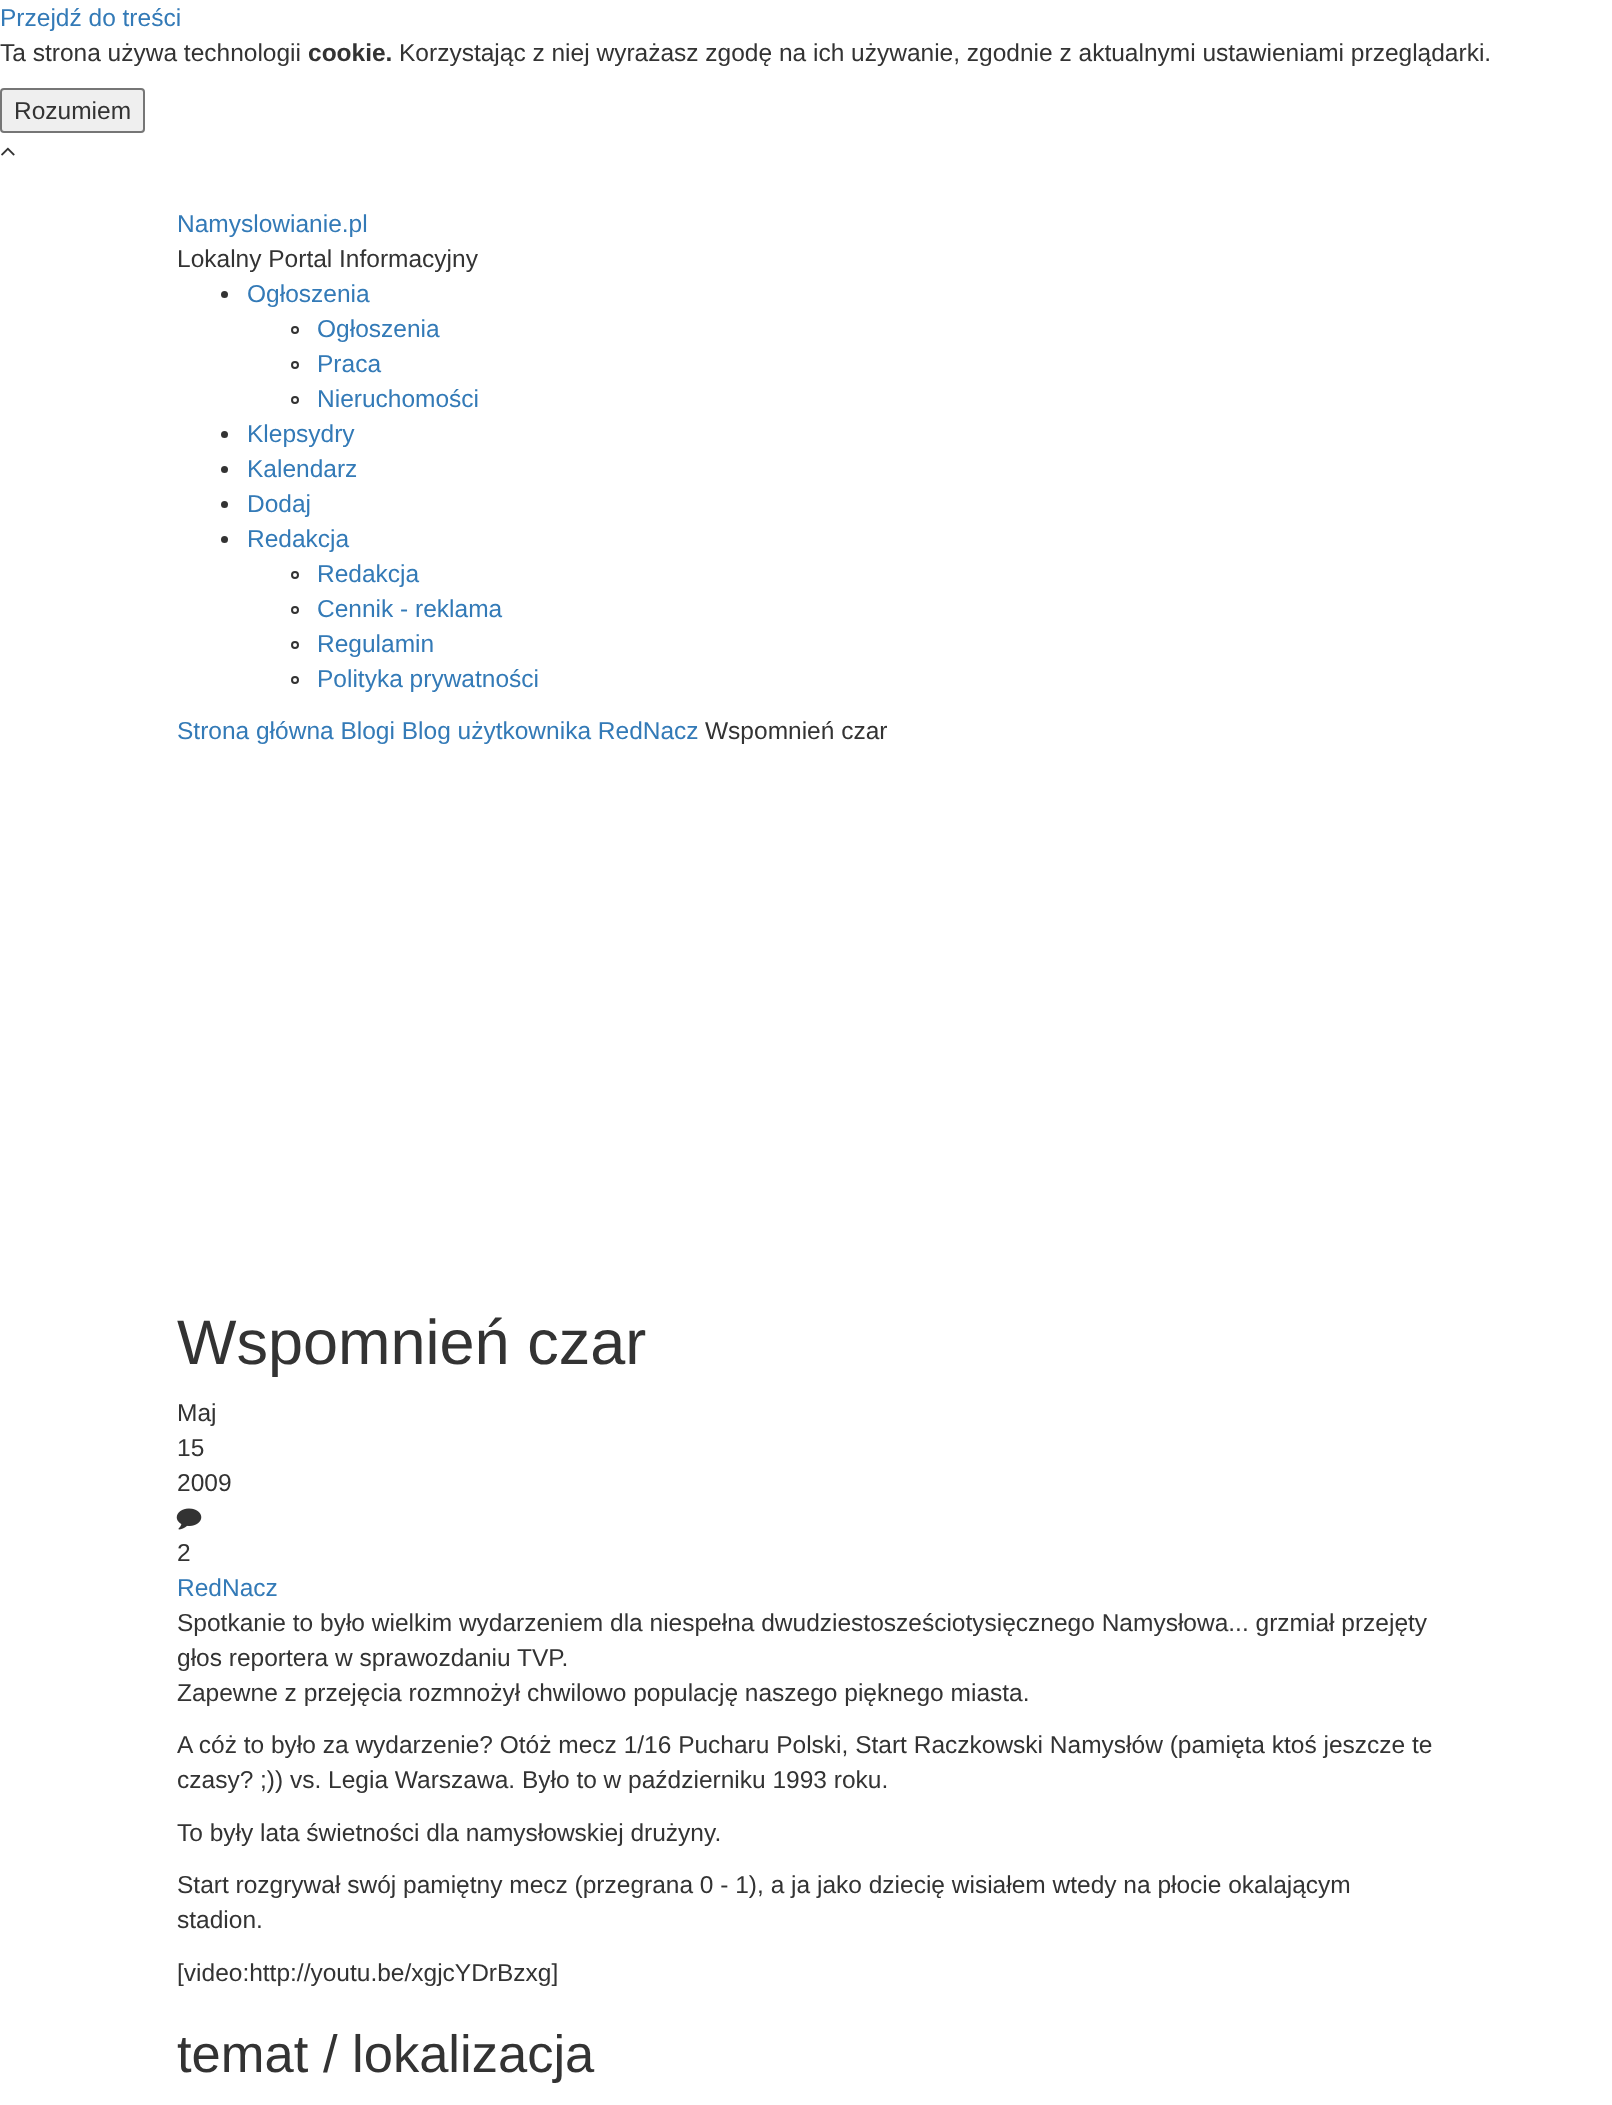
<svg xmlns="http://www.w3.org/2000/svg" width="1612" height="2105" viewBox="0 0 1612 2105">
  <rect width="100%" height="100%" fill="#ffffff"/>
  <text x="0" y="26" font-family="Liberation Sans" font-size="24.5" fill="#337ab7">Przejdź do treści</text>
  <text x="0" y="61" font-family="Liberation Sans" font-size="24.5" fill="#333333">Ta strona używa technologii</text>
  <text x="308" y="61" font-family="Liberation Sans" font-size="24.5" font-weight="bold" fill="#333333">cookie.</text>
  <text x="399" y="61" font-family="Liberation Sans" font-size="24.5" fill="#333333">Korzystając z niej wyrażasz zgodę na ich używanie, zgodnie z aktualnymi ustawieniami przeglądarki.</text>
  <rect x="1" y="89" width="143" height="43" rx="3" fill="#efefef" stroke="#767676" stroke-width="2"/>
  <text x="14" y="119" font-family="Liberation Sans" font-size="24.5" fill="#333333">Rozumiem</text>
  <image x="1" y="147" width="14" height="9" href="img1.png"/>
  <text x="177" y="232" font-family="Liberation Sans" font-size="24.5" fill="#337ab7">Namyslowianie.pl</text>
  <text x="177" y="267" font-family="Liberation Sans" font-size="24.5" fill="#333333">Lokalny Portal Informacyjny</text>
  <circle cx="224.5" cy="294.5" r="3.5" fill="#333333"/>
  <text x="247" y="302" font-family="Liberation Sans" font-size="24.5" fill="#337ab7">Ogłoszenia</text>
  <circle cx="295" cy="330" r="3" fill="none" stroke="#333333" stroke-width="2"/>
  <text x="317" y="337" font-family="Liberation Sans" font-size="24.5" fill="#337ab7">Ogłoszenia</text>
  <circle cx="295" cy="365" r="3" fill="none" stroke="#333333" stroke-width="2"/>
  <text x="317" y="372" font-family="Liberation Sans" font-size="24.5" fill="#337ab7">Praca</text>
  <circle cx="295" cy="400" r="3" fill="none" stroke="#333333" stroke-width="2"/>
  <text x="317" y="407" font-family="Liberation Sans" font-size="24.5" fill="#337ab7">Nieruchomości</text>
  <circle cx="224.5" cy="434.5" r="3.5" fill="#333333"/>
  <text x="247" y="442" font-family="Liberation Sans" font-size="24.5" fill="#337ab7">Klepsydry</text>
  <circle cx="224.5" cy="469.5" r="3.5" fill="#333333"/>
  <text x="247" y="477" font-family="Liberation Sans" font-size="24.5" fill="#337ab7">Kalendarz</text>
  <circle cx="224.5" cy="504.5" r="3.5" fill="#333333"/>
  <text x="247" y="512" font-family="Liberation Sans" font-size="24.5" fill="#337ab7">Dodaj</text>
  <circle cx="224.5" cy="539.5" r="3.5" fill="#333333"/>
  <text x="247" y="547" font-family="Liberation Sans" font-size="24.5" fill="#337ab7">Redakcja</text>
  <circle cx="295" cy="575" r="3" fill="none" stroke="#333333" stroke-width="2"/>
  <text x="317" y="582" font-family="Liberation Sans" font-size="24.5" fill="#337ab7">Redakcja</text>
  <circle cx="295" cy="610" r="3" fill="none" stroke="#333333" stroke-width="2"/>
  <text x="317" y="617" font-family="Liberation Sans" font-size="24.5" fill="#337ab7">Cennik - reklama</text>
  <circle cx="295" cy="645" r="3" fill="none" stroke="#333333" stroke-width="2"/>
  <text x="317" y="652" font-family="Liberation Sans" font-size="24.5" fill="#337ab7">Regulamin</text>
  <circle cx="295" cy="680" r="3" fill="none" stroke="#333333" stroke-width="2"/>
  <text x="317" y="687" font-family="Liberation Sans" font-size="24.5" fill="#337ab7">Polityka prywatności</text>
  <text x="177" y="739" font-family="Liberation Sans" font-size="24.5" fill="#337ab7">Strona główna Blogi Blog użytkownika RedNacz</text>
  <text x="705" y="739" font-family="Liberation Sans" font-size="24.5" fill="#333333">Wspomnień czar</text>
  <text x="177" y="1364" font-family="Liberation Sans" font-size="63" fill="#333333">Wspomnień czar</text>
  <text x="177" y="1421" font-family="Liberation Sans" font-size="24.5" fill="#333333">Maj</text>
  <text x="177" y="1456" font-family="Liberation Sans" font-size="24.5" fill="#333333">15</text>
  <text x="177" y="1491" font-family="Liberation Sans" font-size="24.5" fill="#333333">2009</text>
  <image x="176" y="1508" width="26" height="22" href="img2.png"/>
  <text x="177" y="1561" font-family="Liberation Sans" font-size="24.5" fill="#333333">2</text>
  <text x="177" y="1596" font-family="Liberation Sans" font-size="24.5" fill="#337ab7">RedNacz</text>
  <text x="177" y="1631" font-family="Liberation Sans" font-size="24.5" fill="#333333">Spotkanie to było wielkim wydarzeniem dla niespełna dwudziestosześciotysięcznego Namysłowa... grzmiał przejęty</text>
  <text x="177" y="1666" font-family="Liberation Sans" font-size="24.5" fill="#333333">głos reportera w sprawozdaniu TVP.</text>
  <text x="177" y="1701" font-family="Liberation Sans" font-size="24.5" fill="#333333">Zapewne z przejęcia rozmnożył chwilowo populację naszego pięknego miasta.</text>
  <text x="177" y="1753" font-family="Liberation Sans" font-size="24.5" fill="#333333">A cóż to było za wydarzenie? Otóż mecz 1/16 Pucharu Polski, Start Raczkowski Namysłów (pamięta ktoś jeszcze te</text>
  <text x="177" y="1788" font-family="Liberation Sans" font-size="24.5" fill="#333333">czasy? ;)) vs. Legia Warszawa. Było to w październiku 1993 roku.</text>
  <text x="177" y="1841" font-family="Liberation Sans" font-size="24.5" fill="#333333">To były lata świetności dla namysłowskiej drużyny.</text>
  <text x="177" y="1893" font-family="Liberation Sans" font-size="24.5" fill="#333333">Start rozgrywał swój pamiętny mecz (przegrana 0 - 1), a ja jako dziecię wisiałem wtedy na płocie okalającym</text>
  <text x="177" y="1928" font-family="Liberation Sans" font-size="24.5" fill="#333333">stadion.</text>
  <text x="177" y="1981" font-family="Liberation Sans" font-size="24.5" fill="#333333">[video:http://youtu.be/xgjcYDrBzxg]</text>
  <text x="177" y="2072" font-family="Liberation Sans" font-size="52.5" fill="#333333">temat / lokalizacja</text>
</svg>
